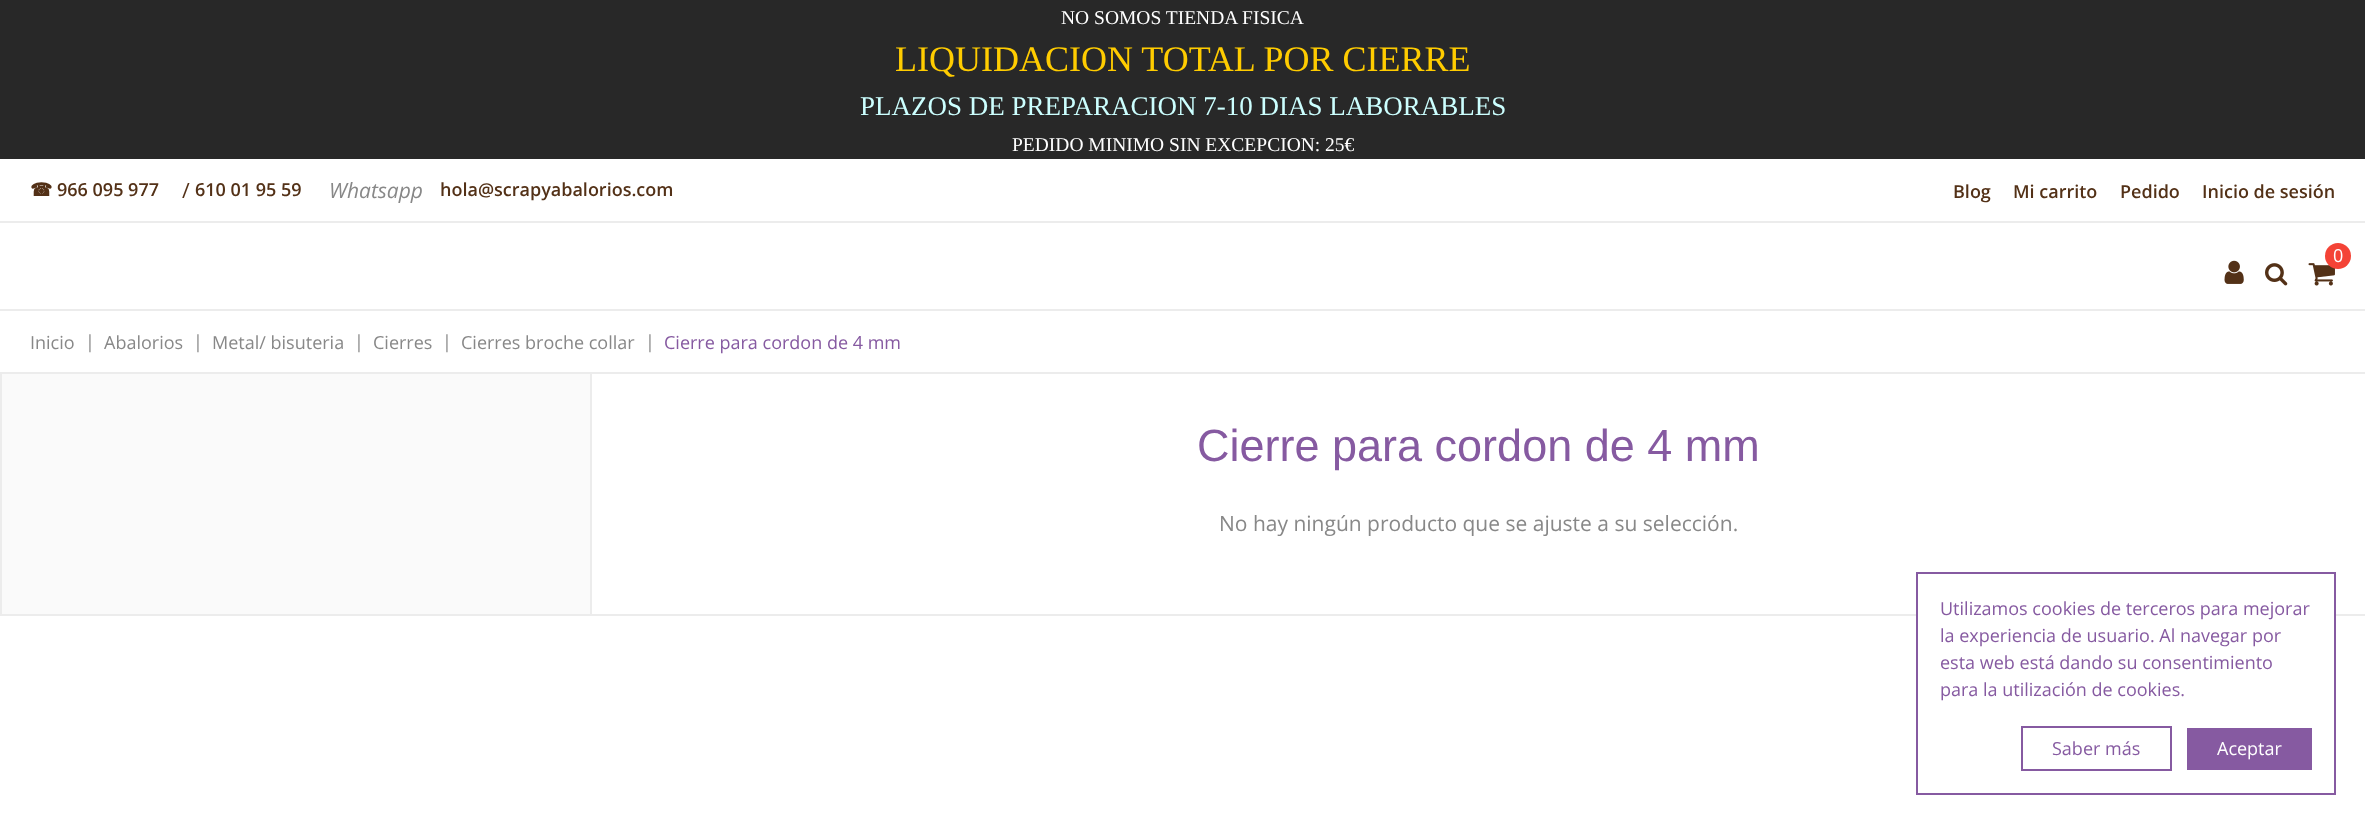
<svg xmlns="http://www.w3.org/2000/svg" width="2365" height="825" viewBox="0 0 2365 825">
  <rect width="100%" height="100%" fill="#ffffff"/>
  <rect x="0" y="221" width="2365" height="2" fill="#ececec"/>
  <rect x="0" y="0" width="2365" height="159" fill="#282828"/>
  <text x="1061" y="24" font-family="Liberation Serif" font-size="19.5" fill="#ffffff">NO SOMOS TIENDA FISICA</text>
  <text x="895" y="71" font-family="Liberation Serif" font-size="36" fill="#ffcc00">LIQUIDACION TOTAL POR CIERRE</text>
  <text x="860" y="115" font-family="Liberation Serif" font-size="27" fill="#ccffff">PLAZOS DE PREPARACION 7-10 DIAS LABORABLES</text>
  <text x="1012" y="151" font-family="Liberation Serif" font-size="19.5" fill="#ffffff">PEDIDO MINIMO SIN EXCEPCION: 25€</text>
  <text x="30" y="196" font-family="DejaVu Sans" font-size="18" font-weight="bold" fill="#533117">☎</text>
  <text x="57" y="196" font-family="Open Sans" font-size="18" font-weight="600" fill="#533117">966 095 977</text>
  <text x="182" y="198" font-family="Open Sans" font-size="21" fill="#533117">/</text>
  <text x="195" y="196" font-family="Open Sans" font-size="18" font-weight="600" fill="#533117">610 01 95 59</text>
  <text x="329" y="198" font-family="Open Sans" font-size="21" font-style="italic" fill="#888888">Whatsapp</text>
  <text x="440" y="196" font-family="Open Sans" font-size="18" font-weight="600" fill="#533117">hola@scrapyabalorios.com</text>
  <text x="1953" y="198" font-family="Open Sans" font-size="18" font-weight="600" fill="#533117">Blog</text>
  <text x="2013" y="198" font-family="Open Sans" font-size="18" font-weight="600" fill="#533117">Mi carrito</text>
  <text x="2120" y="198" font-family="Open Sans" font-size="18" font-weight="600" fill="#533117">Pedido</text>
  <text x="2202" y="198" font-family="Open Sans" font-size="18" font-weight="600" fill="#533117">Inicio de sesión</text>
  <image x="2308" y="263" width="27" height="23" href="img1.png"/>
  <circle cx="2338" cy="256" r="13" fill="#f44336"/>
  <text x="2333" y="262" font-family="Open Sans" font-size="18" fill="#ffffff">0</text>
  <image x="2224" y="260" width="20" height="24" href="img2.png"/>
  <image x="2265" y="263" width="23" height="23" href="img3.png"/>
  <rect x="0" y="309" width="2365" height="2" fill="#ececec"/>
  <rect x="0" y="372" width="2365" height="2" fill="#ececec"/>
  <text x="30" y="349" font-family="Open Sans" font-size="18" fill="#888888">Inicio</text>
  <text x="85" y="348" font-family="Open Sans" font-size="18" fill="#888888">|</text>
  <text x="104" y="349" font-family="Open Sans" font-size="18" fill="#888888">Abalorios</text>
  <text x="193" y="348" font-family="Open Sans" font-size="18" fill="#888888">|</text>
  <text x="212" y="349" font-family="Open Sans" font-size="18" fill="#888888">Metal/ bisuteria</text>
  <text x="354" y="348" font-family="Open Sans" font-size="18" fill="#888888">|</text>
  <text x="373" y="349" font-family="Open Sans" font-size="18" fill="#888888">Cierres</text>
  <text x="442" y="348" font-family="Open Sans" font-size="18" fill="#888888">|</text>
  <text x="461" y="349" font-family="Open Sans" font-size="18" fill="#888888">Cierres broche collar</text>
  <text x="645" y="348" font-family="Open Sans" font-size="18" fill="#888888">|</text>
  <text x="664" y="349" font-family="Open Sans" font-size="18" fill="#865aa1">Cierre para cordon de 4 mm</text>
  <rect x="0" y="614" width="2365" height="2" fill="#ececec"/>
  <rect x="2" y="374" width="588" height="240" fill="#fafafa"/>
  <rect x="590" y="374" width="2" height="240" fill="#ececec"/>
  <rect x="0" y="374" width="2" height="240" fill="#ececec"/>
  <text x="1197" y="461" font-family="Liberation Sans" font-size="45" fill="#865aa1">Cierre para cordon de 4 mm</text>
  <text x="1219" y="531" font-family="Open Sans" font-size="21" fill="#888888">No hay ningún producto que se ajuste a su selección.</text>
  <rect x="1918" y="614" width="416" height="2" fill="#ffffff"/>
  <rect x="1917" y="573" width="418" height="221" fill="none" stroke="#865aa1" stroke-width="2"/>
  <text x="1940" y="615" font-family="Open Sans" font-size="18" fill="#865aa1">Utilizamos cookies de terceros para mejorar</text>
  <text x="1940" y="642" font-family="Open Sans" font-size="18" fill="#865aa1">la experiencia de usuario. Al navegar por</text>
  <text x="1940" y="669" font-family="Open Sans" font-size="18" fill="#865aa1">esta web está dando su consentimiento</text>
  <text x="1940" y="696" font-family="Open Sans" font-size="18" fill="#865aa1">para la utilización de cookies.</text>
  <rect x="2022" y="727" width="149" height="43" fill="none" stroke="#865aa1" stroke-width="2"/>
  <text x="2052" y="755" font-family="Open Sans" font-size="18" fill="#865aa1">Saber más</text>
  <rect x="2187" y="728" width="125" height="42" fill="#865aa1"/>
  <text x="2217" y="755" font-family="Open Sans" font-size="18" fill="#ffffff">Aceptar</text>
</svg>
